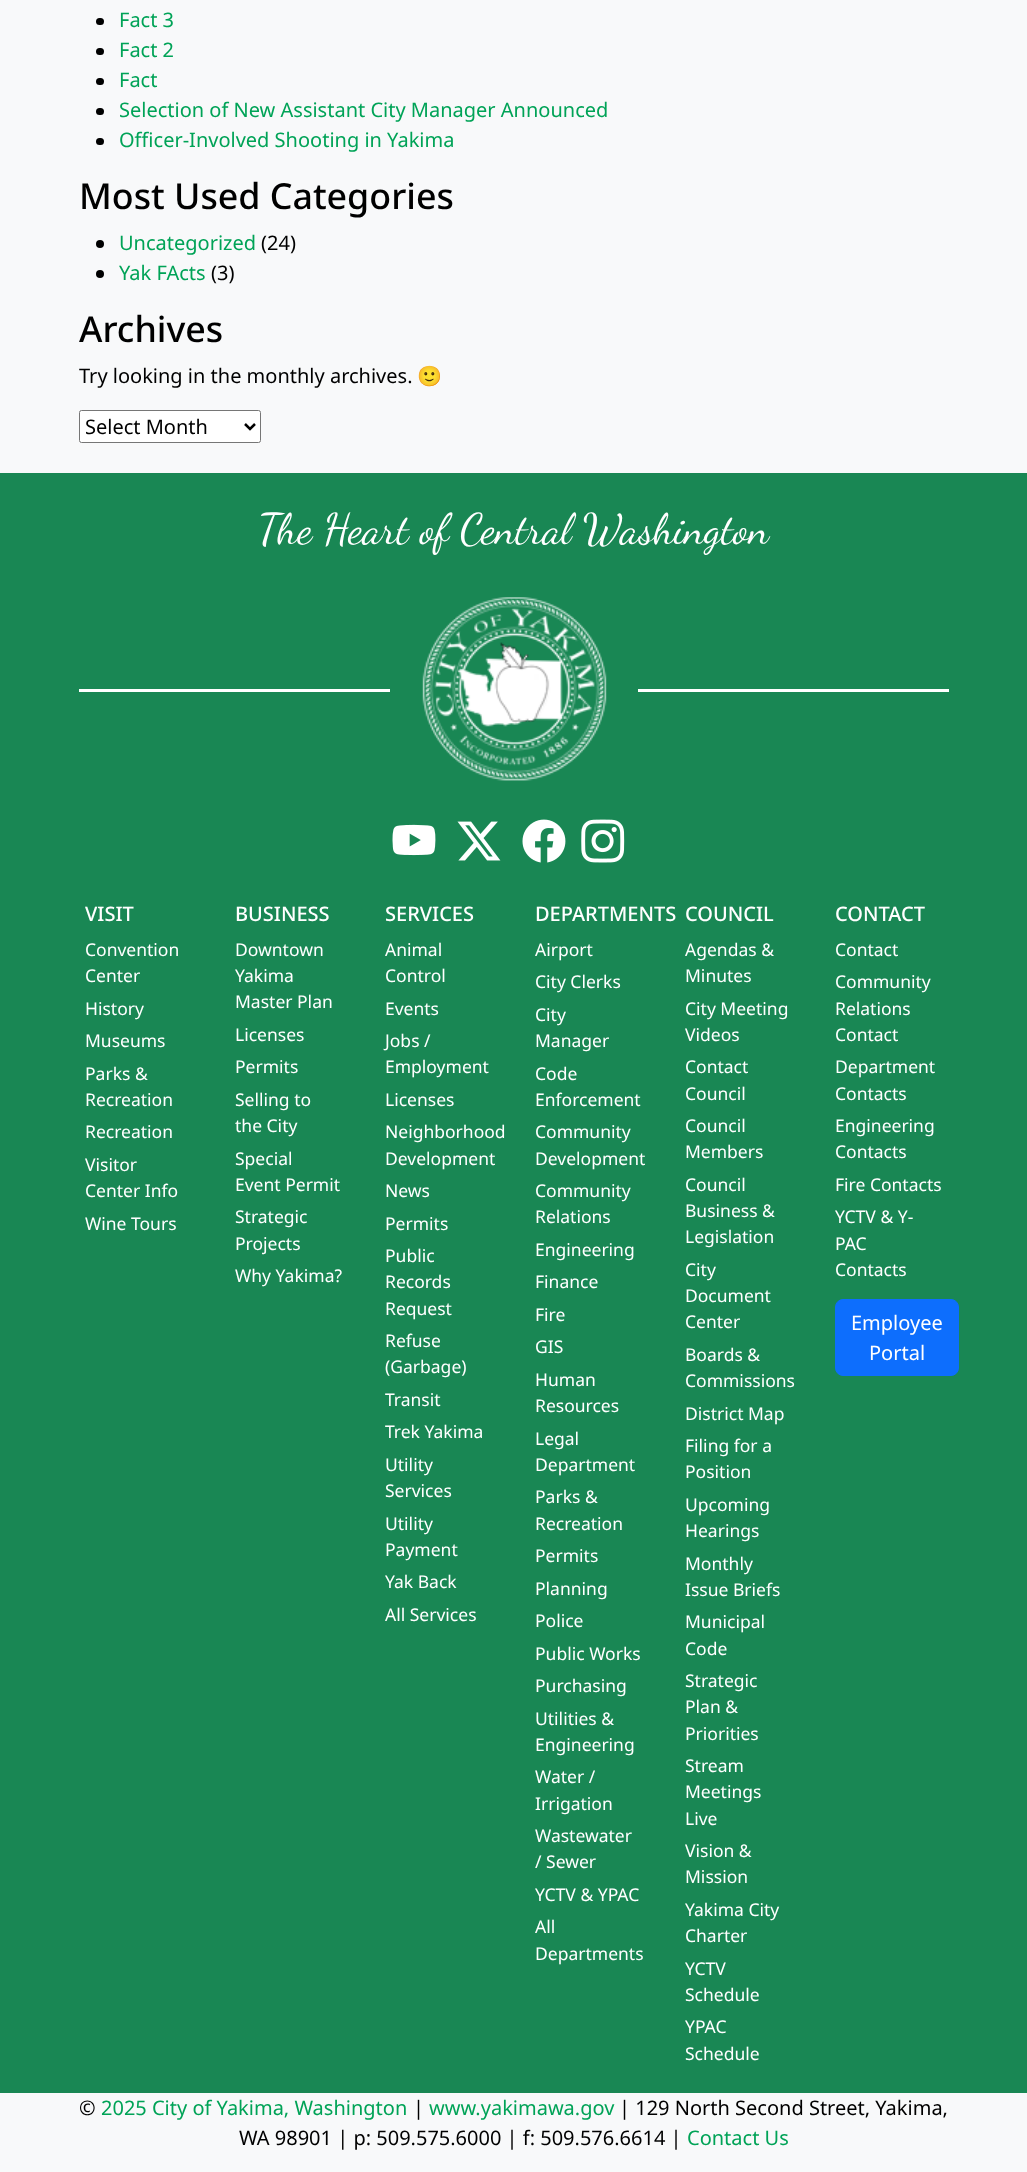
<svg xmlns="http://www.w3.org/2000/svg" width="1027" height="2172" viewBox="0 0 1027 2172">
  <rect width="100%" height="100%" fill="#f8f9fa"/>
  <rect x="96" y="18" width="8" height="7" rx="3.5" fill="#000000"/>
  <text x="119" y="27" font-family="Noto Sans" font-size="20" fill="#00a357">Fact 3</text>
  <rect x="96" y="48" width="8" height="7" rx="3.5" fill="#000000"/>
  <text x="119" y="57" font-family="Noto Sans" font-size="20" fill="#00a357">Fact 2</text>
  <rect x="96" y="78" width="8" height="7" rx="3.5" fill="#000000"/>
  <text x="119" y="87" font-family="Noto Sans" font-size="20" fill="#00a357">Fact</text>
  <rect x="96" y="108" width="8" height="7" rx="3.5" fill="#000000"/>
  <text x="119" y="117" font-family="Noto Sans" font-size="20" fill="#00a357">Selection of New Assistant City Manager Announced</text>
  <rect x="96" y="138" width="8" height="7" rx="3.5" fill="#000000"/>
  <text x="119" y="147" font-family="Noto Sans" font-size="20" fill="#00a357">Officer-Involved Shooting in Yakima</text>
  <text x="79" y="209" font-family="Noto Sans" font-size="35.75" font-weight="500" fill="#000000">Most Used Categories</text>
  <circle cx="100" cy="244" r="4" fill="#000000"/>
  <text x="119" y="250" font-family="Noto Sans" font-size="20" fill="#00a357">Uncategorized</text>
  <text x="261" y="250" font-family="Noto Sans" font-size="20" fill="#000000">(24)</text>
  <circle cx="100" cy="274" r="4" fill="#000000"/>
  <text x="119" y="280" font-family="Noto Sans" font-size="20" fill="#00a357">Yak FActs</text>
  <text x="211" y="280" font-family="Noto Sans" font-size="20" fill="#000000">(3)</text>
  <text x="79" y="342" font-family="Noto Sans" font-size="35.75" font-weight="500" fill="#000000">Archives</text>
  <text x="79" y="383" font-family="Noto Sans" font-size="20" fill="#000000">Try looking in the monthly archives.</text>
  <text x="417" y="383" font-family="Noto Color Emoji" font-size="20" fill="#000000">🙂</text>
  <rect x="79.5" y="410.5" width="181" height="32" rx="2" fill="#ffffff" stroke="#767676"/>
  <path d="M245 424L250 429L255 424" fill="none" stroke="#000000" stroke-width="2.5"/>
  <text x="85" y="434" font-family="Noto Sans" font-size="20" fill="#000000">Select Month</text>
  <rect x="0" y="473" width="1027" height="1620" fill="#198754"/>
  <text x="258" y="543" font-family="Dancing Script" font-size="42.9" fill="#ffffff">The Heart of Central Washington</text>
  <rect x="79" y="689" width="311" height="3" fill="#ffffff"/>
  <image x="422" y="597" width="185" height="184" href="img1.png"/>
  <rect x="638" y="689" width="311" height="3" fill="#ffffff"/>
  <image x="392" y="824" width="44" height="32" href="img2.png"/>
  <image x="457" y="821" width="44" height="40" href="img3.png"/>
  <image x="522" y="819" width="44" height="44" href="img4.png"/>
  <image x="581" y="819" width="44" height="44" href="img5.png"/>
  <text x="85" y="921" font-family="Noto Sans" font-size="20" font-weight="500" fill="#ffffff">VISIT</text>
  <text x="85" y="956" font-family="Noto Sans" font-size="17.5" fill="#ffffff">Convention</text>
  <text x="85" y="982" font-family="Noto Sans" font-size="17.5" fill="#ffffff">Center</text>
  <text x="85" y="1015" font-family="Noto Sans" font-size="17.5" fill="#ffffff">History</text>
  <text x="85" y="1047" font-family="Noto Sans" font-size="17.5" fill="#ffffff">Museums</text>
  <text x="85" y="1080" font-family="Noto Sans" font-size="17.5" fill="#ffffff">Parks &amp;</text>
  <text x="85" y="1106" font-family="Noto Sans" font-size="17.5" fill="#ffffff">Recreation</text>
  <text x="85" y="1138" font-family="Noto Sans" font-size="17.5" fill="#ffffff">Recreation</text>
  <text x="85" y="1171" font-family="Noto Sans" font-size="17.5" fill="#ffffff">Visitor</text>
  <text x="85" y="1197" font-family="Noto Sans" font-size="17.5" fill="#ffffff">Center Info</text>
  <text x="85" y="1230" font-family="Noto Sans" font-size="17.5" fill="#ffffff">Wine Tours</text>
  <text x="235" y="921" font-family="Noto Sans" font-size="20" font-weight="500" fill="#ffffff">BUSINESS</text>
  <text x="235" y="956" font-family="Noto Sans" font-size="17.5" fill="#ffffff">Downtown</text>
  <text x="235" y="982" font-family="Noto Sans" font-size="17.5" fill="#ffffff">Yakima</text>
  <text x="235" y="1008" font-family="Noto Sans" font-size="17.5" fill="#ffffff">Master Plan</text>
  <text x="235" y="1041" font-family="Noto Sans" font-size="17.5" fill="#ffffff">Licenses</text>
  <text x="235" y="1073" font-family="Noto Sans" font-size="17.5" fill="#ffffff">Permits</text>
  <text x="235" y="1106" font-family="Noto Sans" font-size="17.5" fill="#ffffff">Selling to</text>
  <text x="235" y="1132" font-family="Noto Sans" font-size="17.5" fill="#ffffff">the City</text>
  <text x="235" y="1165" font-family="Noto Sans" font-size="17.5" fill="#ffffff">Special</text>
  <text x="235" y="1191" font-family="Noto Sans" font-size="17.5" fill="#ffffff">Event Permit</text>
  <text x="235" y="1223" font-family="Noto Sans" font-size="17.5" fill="#ffffff">Strategic</text>
  <text x="235" y="1250" font-family="Noto Sans" font-size="17.5" fill="#ffffff">Projects</text>
  <text x="235" y="1282" font-family="Noto Sans" font-size="17.5" fill="#ffffff">Why Yakima?</text>
  <text x="385" y="921" font-family="Noto Sans" font-size="20" font-weight="500" fill="#ffffff">SERVICES</text>
  <text x="385" y="956" font-family="Noto Sans" font-size="17.5" fill="#ffffff">Animal</text>
  <text x="385" y="982" font-family="Noto Sans" font-size="17.5" fill="#ffffff">Control</text>
  <text x="385" y="1015" font-family="Noto Sans" font-size="17.5" fill="#ffffff">Events</text>
  <text x="385" y="1047" font-family="Noto Sans" font-size="17.5" fill="#ffffff">Jobs /</text>
  <text x="385" y="1073" font-family="Noto Sans" font-size="17.5" fill="#ffffff">Employment</text>
  <text x="385" y="1106" font-family="Noto Sans" font-size="17.5" fill="#ffffff">Licenses</text>
  <text x="385" y="1138" font-family="Noto Sans" font-size="17.5" fill="#ffffff">Neighborhood</text>
  <text x="385" y="1165" font-family="Noto Sans" font-size="17.5" fill="#ffffff">Development</text>
  <text x="385" y="1197" font-family="Noto Sans" font-size="17.5" fill="#ffffff">News</text>
  <text x="385" y="1230" font-family="Noto Sans" font-size="17.5" fill="#ffffff">Permits</text>
  <text x="385" y="1262" font-family="Noto Sans" font-size="17.5" fill="#ffffff">Public</text>
  <text x="385" y="1288" font-family="Noto Sans" font-size="17.5" fill="#ffffff">Records</text>
  <text x="385" y="1315" font-family="Noto Sans" font-size="17.5" fill="#ffffff">Request</text>
  <text x="385" y="1347" font-family="Noto Sans" font-size="17.5" fill="#ffffff">Refuse</text>
  <text x="385" y="1373" font-family="Noto Sans" font-size="17.5" fill="#ffffff">(Garbage)</text>
  <text x="385" y="1406" font-family="Noto Sans" font-size="17.5" fill="#ffffff">Transit</text>
  <text x="385" y="1438" font-family="Noto Sans" font-size="17.5" fill="#ffffff">Trek Yakima</text>
  <text x="385" y="1471" font-family="Noto Sans" font-size="17.5" fill="#ffffff">Utility</text>
  <text x="385" y="1497" font-family="Noto Sans" font-size="17.5" fill="#ffffff">Services</text>
  <text x="385" y="1530" font-family="Noto Sans" font-size="17.5" fill="#ffffff">Utility</text>
  <text x="385" y="1556" font-family="Noto Sans" font-size="17.5" fill="#ffffff">Payment</text>
  <text x="385" y="1588" font-family="Noto Sans" font-size="17.5" fill="#ffffff">Yak Back</text>
  <text x="385" y="1621" font-family="Noto Sans" font-size="17.5" fill="#ffffff">All Services</text>
  <text x="535" y="921" font-family="Noto Sans" font-size="20" font-weight="500" fill="#ffffff">DEPARTMENTS</text>
  <text x="535" y="956" font-family="Noto Sans" font-size="17.5" fill="#ffffff">Airport</text>
  <text x="535" y="988" font-family="Noto Sans" font-size="17.5" fill="#ffffff">City Clerks</text>
  <text x="535" y="1021" font-family="Noto Sans" font-size="17.5" fill="#ffffff">City</text>
  <text x="535" y="1047" font-family="Noto Sans" font-size="17.5" fill="#ffffff">Manager</text>
  <text x="535" y="1080" font-family="Noto Sans" font-size="17.5" fill="#ffffff">Code</text>
  <text x="535" y="1106" font-family="Noto Sans" font-size="17.5" fill="#ffffff">Enforcement</text>
  <text x="535" y="1138" font-family="Noto Sans" font-size="17.5" fill="#ffffff">Community</text>
  <text x="535" y="1165" font-family="Noto Sans" font-size="17.5" fill="#ffffff">Development</text>
  <text x="535" y="1197" font-family="Noto Sans" font-size="17.5" fill="#ffffff">Community</text>
  <text x="535" y="1223" font-family="Noto Sans" font-size="17.5" fill="#ffffff">Relations</text>
  <text x="535" y="1256" font-family="Noto Sans" font-size="17.5" fill="#ffffff">Engineering</text>
  <text x="535" y="1288" font-family="Noto Sans" font-size="17.5" fill="#ffffff">Finance</text>
  <text x="535" y="1321" font-family="Noto Sans" font-size="17.5" fill="#ffffff">Fire</text>
  <text x="535" y="1353" font-family="Noto Sans" font-size="17.5" fill="#ffffff">GIS</text>
  <text x="535" y="1386" font-family="Noto Sans" font-size="17.5" fill="#ffffff">Human</text>
  <text x="535" y="1412" font-family="Noto Sans" font-size="17.5" fill="#ffffff">Resources</text>
  <text x="535" y="1445" font-family="Noto Sans" font-size="17.5" fill="#ffffff">Legal</text>
  <text x="535" y="1471" font-family="Noto Sans" font-size="17.5" fill="#ffffff">Department</text>
  <text x="535" y="1503" font-family="Noto Sans" font-size="17.5" fill="#ffffff">Parks &amp;</text>
  <text x="535" y="1530" font-family="Noto Sans" font-size="17.5" fill="#ffffff">Recreation</text>
  <text x="535" y="1562" font-family="Noto Sans" font-size="17.5" fill="#ffffff">Permits</text>
  <text x="535" y="1595" font-family="Noto Sans" font-size="17.5" fill="#ffffff">Planning</text>
  <text x="535" y="1627" font-family="Noto Sans" font-size="17.5" fill="#ffffff">Police</text>
  <text x="535" y="1660" font-family="Noto Sans" font-size="17.5" fill="#ffffff">Public Works</text>
  <text x="535" y="1692" font-family="Noto Sans" font-size="17.5" fill="#ffffff">Purchasing</text>
  <text x="535" y="1725" font-family="Noto Sans" font-size="17.5" fill="#ffffff">Utilities &amp;</text>
  <text x="535" y="1751" font-family="Noto Sans" font-size="17.5" fill="#ffffff">Engineering</text>
  <text x="535" y="1783" font-family="Noto Sans" font-size="17.5" fill="#ffffff">Water /</text>
  <text x="535" y="1810" font-family="Noto Sans" font-size="17.5" fill="#ffffff">Irrigation</text>
  <text x="535" y="1842" font-family="Noto Sans" font-size="17.5" fill="#ffffff">Wastewater</text>
  <text x="535" y="1868" font-family="Noto Sans" font-size="17.5" fill="#ffffff">/ Sewer</text>
  <text x="535" y="1901" font-family="Noto Sans" font-size="17.5" fill="#ffffff">YCTV &amp; YPAC</text>
  <text x="535" y="1933" font-family="Noto Sans" font-size="17.5" fill="#ffffff">All</text>
  <text x="535" y="1960" font-family="Noto Sans" font-size="17.5" fill="#ffffff">Departments</text>
  <text x="685" y="921" font-family="Noto Sans" font-size="20" font-weight="500" fill="#ffffff">COUNCIL</text>
  <text x="685" y="956" font-family="Noto Sans" font-size="17.5" fill="#ffffff">Agendas &amp;</text>
  <text x="685" y="982" font-family="Noto Sans" font-size="17.5" fill="#ffffff">Minutes</text>
  <text x="685" y="1015" font-family="Noto Sans" font-size="17.5" fill="#ffffff">City Meeting</text>
  <text x="685" y="1041" font-family="Noto Sans" font-size="17.5" fill="#ffffff">Videos</text>
  <text x="685" y="1073" font-family="Noto Sans" font-size="17.5" fill="#ffffff">Contact</text>
  <text x="685" y="1100" font-family="Noto Sans" font-size="17.5" fill="#ffffff">Council</text>
  <text x="685" y="1132" font-family="Noto Sans" font-size="17.5" fill="#ffffff">Council</text>
  <text x="685" y="1158" font-family="Noto Sans" font-size="17.5" fill="#ffffff">Members</text>
  <text x="685" y="1191" font-family="Noto Sans" font-size="17.5" fill="#ffffff">Council</text>
  <text x="685" y="1217" font-family="Noto Sans" font-size="17.5" fill="#ffffff">Business &amp;</text>
  <text x="685" y="1243" font-family="Noto Sans" font-size="17.5" fill="#ffffff">Legislation</text>
  <text x="685" y="1276" font-family="Noto Sans" font-size="17.5" fill="#ffffff">City</text>
  <text x="685" y="1302" font-family="Noto Sans" font-size="17.5" fill="#ffffff">Document</text>
  <text x="685" y="1328" font-family="Noto Sans" font-size="17.5" fill="#ffffff">Center</text>
  <text x="685" y="1361" font-family="Noto Sans" font-size="17.5" fill="#ffffff">Boards &amp;</text>
  <text x="685" y="1387" font-family="Noto Sans" font-size="17.5" fill="#ffffff">Commissions</text>
  <text x="685" y="1420" font-family="Noto Sans" font-size="17.5" fill="#ffffff">District Map</text>
  <text x="685" y="1452" font-family="Noto Sans" font-size="17.5" fill="#ffffff">Filing for a</text>
  <text x="685" y="1478" font-family="Noto Sans" font-size="17.5" fill="#ffffff">Position</text>
  <text x="685" y="1511" font-family="Noto Sans" font-size="17.5" fill="#ffffff">Upcoming</text>
  <text x="685" y="1537" font-family="Noto Sans" font-size="17.5" fill="#ffffff">Hearings</text>
  <text x="685" y="1570" font-family="Noto Sans" font-size="17.5" fill="#ffffff">Monthly</text>
  <text x="685" y="1596" font-family="Noto Sans" font-size="17.5" fill="#ffffff">Issue Briefs</text>
  <text x="685" y="1628" font-family="Noto Sans" font-size="17.5" fill="#ffffff">Municipal</text>
  <text x="685" y="1655" font-family="Noto Sans" font-size="17.5" fill="#ffffff">Code</text>
  <text x="685" y="1687" font-family="Noto Sans" font-size="17.5" fill="#ffffff">Strategic</text>
  <text x="685" y="1713" font-family="Noto Sans" font-size="17.5" fill="#ffffff">Plan &amp;</text>
  <text x="685" y="1740" font-family="Noto Sans" font-size="17.5" fill="#ffffff">Priorities</text>
  <text x="685" y="1772" font-family="Noto Sans" font-size="17.5" fill="#ffffff">Stream</text>
  <text x="685" y="1798" font-family="Noto Sans" font-size="17.5" fill="#ffffff">Meetings</text>
  <text x="685" y="1825" font-family="Noto Sans" font-size="17.5" fill="#ffffff">Live</text>
  <text x="685" y="1857" font-family="Noto Sans" font-size="17.5" fill="#ffffff">Vision &amp;</text>
  <text x="685" y="1883" font-family="Noto Sans" font-size="17.5" fill="#ffffff">Mission</text>
  <text x="685" y="1916" font-family="Noto Sans" font-size="17.5" fill="#ffffff">Yakima City</text>
  <text x="685" y="1942" font-family="Noto Sans" font-size="17.5" fill="#ffffff">Charter</text>
  <text x="685" y="1975" font-family="Noto Sans" font-size="17.5" fill="#ffffff">YCTV</text>
  <text x="685" y="2001" font-family="Noto Sans" font-size="17.5" fill="#ffffff">Schedule</text>
  <text x="685" y="2033" font-family="Noto Sans" font-size="17.5" fill="#ffffff">YPAC</text>
  <text x="685" y="2060" font-family="Noto Sans" font-size="17.5" fill="#ffffff">Schedule</text>
  <text x="835" y="921" font-family="Noto Sans" font-size="20" font-weight="500" fill="#ffffff">CONTACT</text>
  <text x="835" y="956" font-family="Noto Sans" font-size="17.5" fill="#ffffff">Contact</text>
  <text x="835" y="988" font-family="Noto Sans" font-size="17.5" fill="#ffffff">Community</text>
  <text x="835" y="1015" font-family="Noto Sans" font-size="17.5" fill="#ffffff">Relations</text>
  <text x="835" y="1041" font-family="Noto Sans" font-size="17.5" fill="#ffffff">Contact</text>
  <text x="835" y="1073" font-family="Noto Sans" font-size="17.5" fill="#ffffff">Department</text>
  <text x="835" y="1100" font-family="Noto Sans" font-size="17.5" fill="#ffffff">Contacts</text>
  <text x="835" y="1132" font-family="Noto Sans" font-size="17.5" fill="#ffffff">Engineering</text>
  <text x="835" y="1158" font-family="Noto Sans" font-size="17.5" fill="#ffffff">Contacts</text>
  <text x="835" y="1191" font-family="Noto Sans" font-size="17.5" fill="#ffffff">Fire Contacts</text>
  <text x="835" y="1223" font-family="Noto Sans" font-size="17.5" fill="#ffffff">YCTV &amp; Y-</text>
  <text x="835" y="1250" font-family="Noto Sans" font-size="17.5" fill="#ffffff">PAC</text>
  <text x="835" y="1276" font-family="Noto Sans" font-size="17.5" fill="#ffffff">Contacts</text>
  <rect x="835.5" y="1299.5" width="123" height="76" rx="7.5" fill="#0d6efd" stroke="#0d6efd"/>
  <text x="851" y="1330" font-family="Noto Sans" font-size="20" fill="#ffffff">Employee</text>
  <text x="869" y="1360" font-family="Noto Sans" font-size="20" fill="#ffffff">Portal</text>
  <text x="79" y="2115" font-family="Noto Sans" font-size="20" fill="#000000">©</text>
  <text x="101" y="2115" font-family="Noto Sans" font-size="20" fill="#00a357">2025 City of Yakima, Washington</text>
  <text x="413" y="2115" font-family="Noto Sans" font-size="20" fill="#000000">|</text>
  <text x="429" y="2115" font-family="Noto Sans" font-size="20" fill="#00a357">www.yakimawa.gov</text>
  <text x="619" y="2115" font-family="Noto Sans" font-size="20" fill="#000000">| 129 North Second Street, Yakima,</text>
  <text x="239" y="2145" font-family="Noto Sans" font-size="20" fill="#000000">WA 98901 | p: 509.575.6000 | f: 509.576.6614 |</text>
  <text x="687" y="2145" font-family="Noto Sans" font-size="20" fill="#00a357">Contact Us</text>
</svg>
